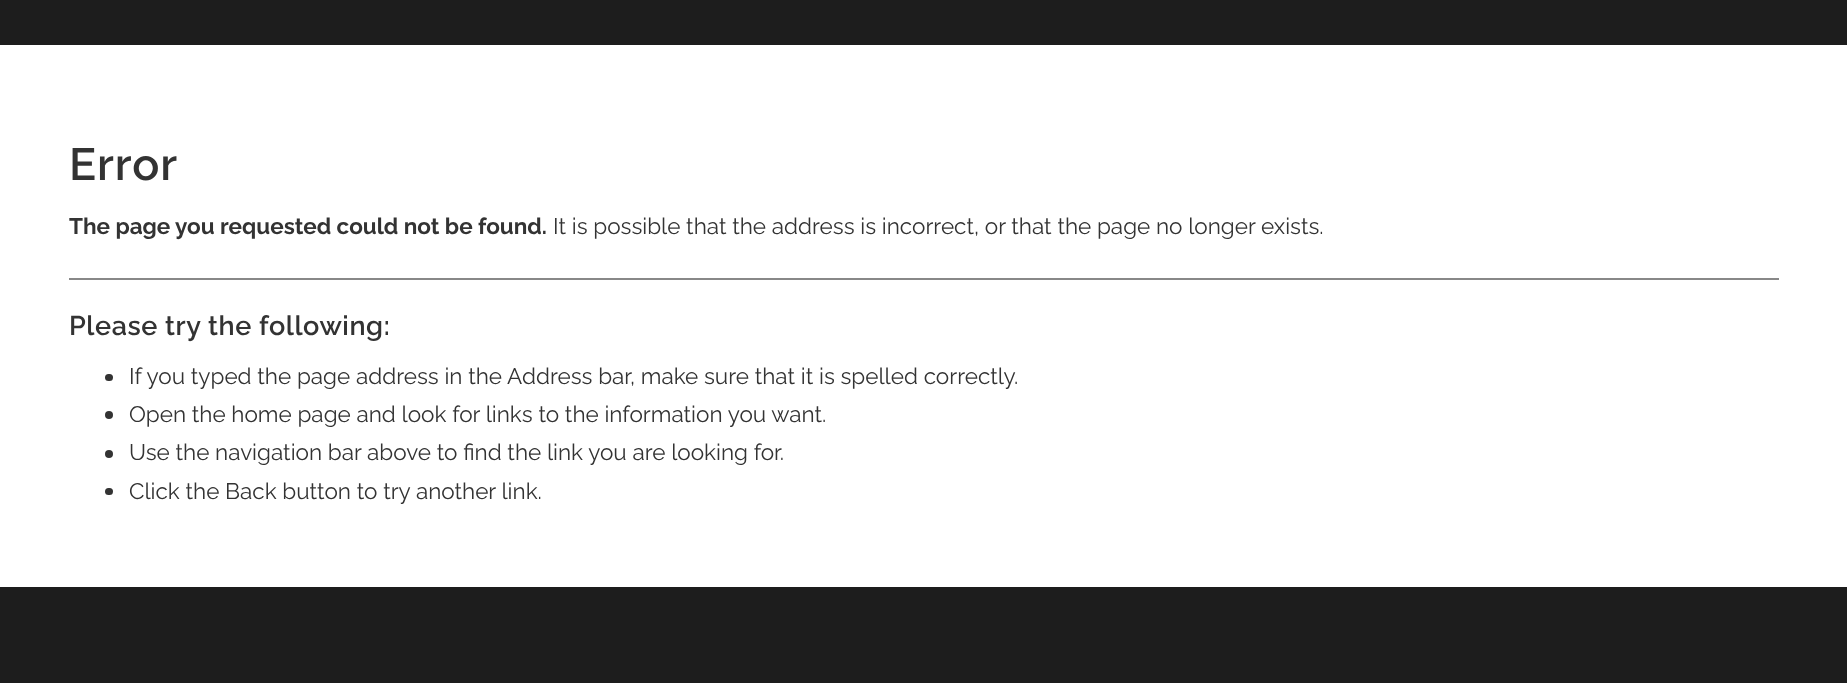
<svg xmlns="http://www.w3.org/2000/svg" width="1847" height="683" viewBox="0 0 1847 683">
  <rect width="100%" height="100%" fill="#ffffff"/>
  <rect x="0" y="0" width="1847" height="45" fill="#1d1d1d"/>
  <text x="69" y="180" font-family="Raleway" font-size="45" font-weight="600" letter-spacing="1" fill="#333333">Error</text>
  <text x="69" y="234" font-family="Raleway" font-size="22.5" font-weight="bold" fill="#333333">The page you requested could not be found.</text>
  <text x="553" y="234" font-family="Raleway" font-size="22.5" fill="#333333">It is possible that the address is incorrect, or that the page no longer exists.</text>
  <rect x="69" y="278" width="1710" height="2" fill="#888888"/>
  <text x="69" y="335" font-family="Raleway" font-size="27" font-weight="600" letter-spacing="0.55" fill="#333333">Please try the following:</text>
  <rect x="105" y="374" width="8" height="7" rx="3.5" fill="#333333"/>
  <text x="129" y="384" font-family="Raleway" font-size="22.5" fill="#333333">If you typed the page address in the Address bar, make sure that it is spelled correctly.</text>
  <circle cx="109" cy="415" r="4" fill="#333333"/>
  <text x="129" y="422" font-family="Raleway" font-size="22.5" fill="#333333">Open the home page and look for links to the information you want.</text>
  <circle cx="109" cy="454" r="4" fill="#333333"/>
  <text x="129" y="460" font-family="Raleway" font-size="22.5" fill="#333333">Use the navigation bar above to find the link you are looking for.</text>
  <rect x="105" y="488" width="8" height="7" rx="3.5" fill="#333333"/>
  <text x="129" y="499" font-family="Raleway" font-size="22.5" fill="#333333">Click the Back button to try another link.</text>
  <rect x="0" y="587" width="1847" height="96" fill="#1d1d1d"/>
</svg>
